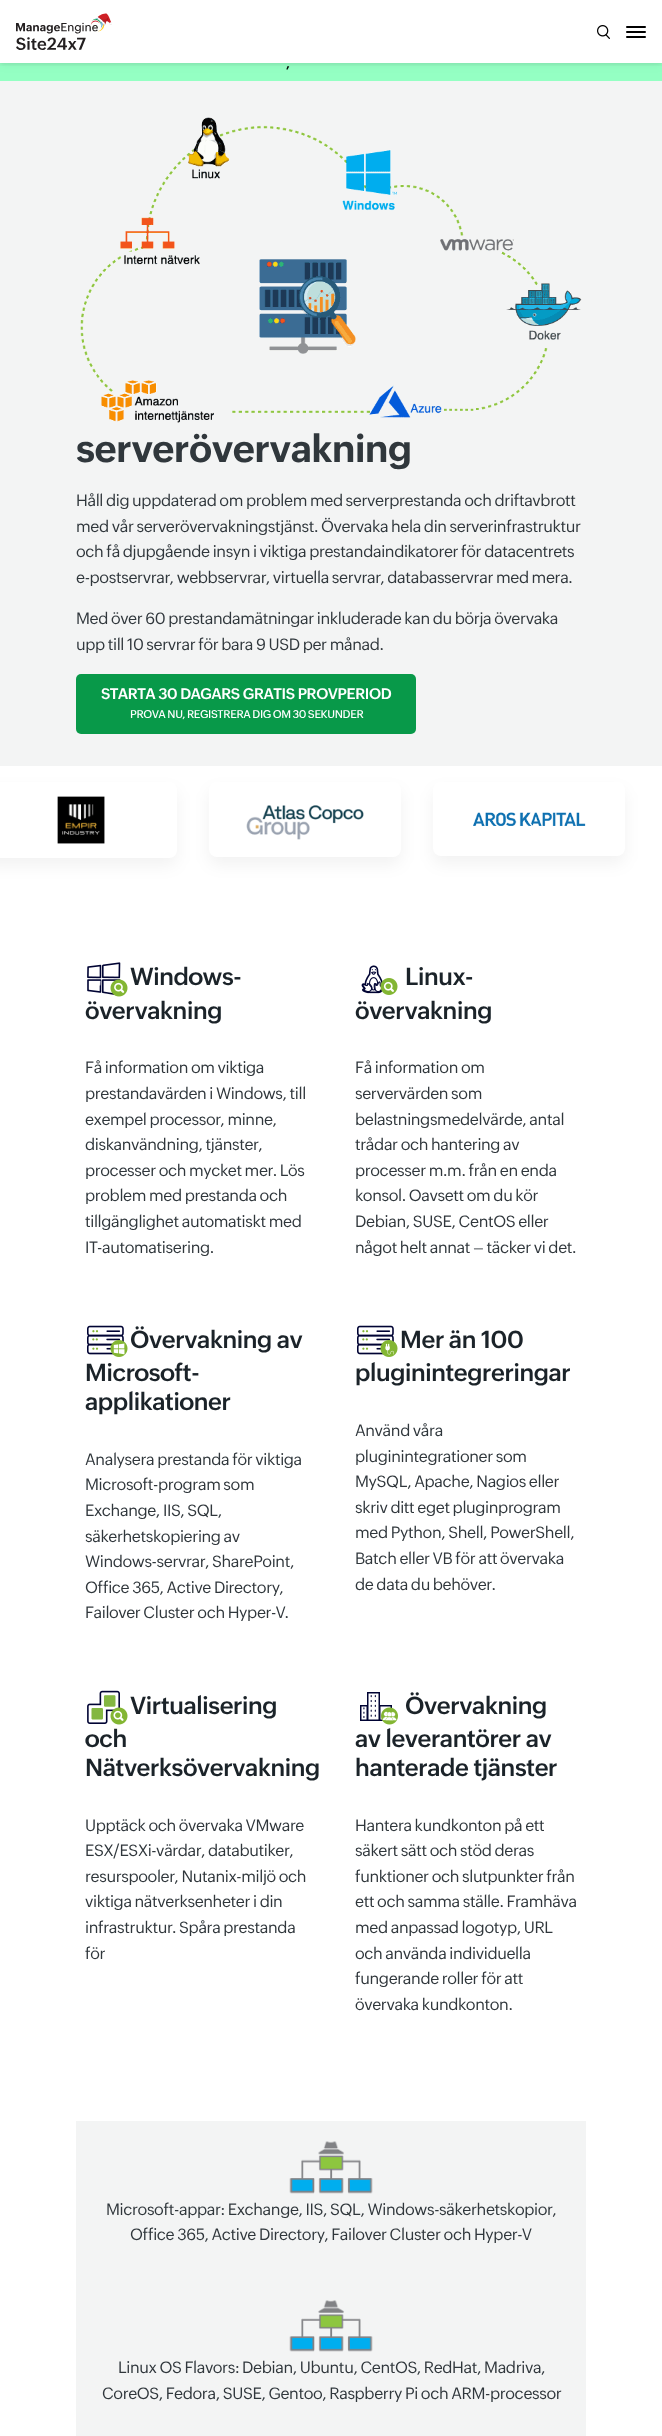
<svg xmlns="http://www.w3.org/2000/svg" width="662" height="2436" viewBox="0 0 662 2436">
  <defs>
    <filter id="blur1" x="-50%" y="-200%" width="200%" height="500%"><feGaussianBlur stdDeviation="5"/></filter>
    <clipPath id="clip1"><rect x="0" y="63" width="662" height="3"/></clipPath>
    <filter id="blur2" x="-50%" y="-200%" width="200%" height="500%"><feGaussianBlur stdDeviation="2"/></filter>
    <filter id="blur3" x="-50%" y="-200%" width="200%" height="500%"><feGaussianBlur stdDeviation="8"/></filter>
  </defs>
  <rect width="100%" height="100%" fill="#ffffff"/>
  <rect x="0" y="63" width="662" height="18" fill="#94ffc3"/>
  <rect x="0" y="2" width="662" height="63" fill="#000000" fill-opacity="0.05" filter="url(#blur1)"/>
  <rect x="0" y="0" width="662" height="63" fill="#ffffff"/>
  <g clip-path="url(#clip1)">
    <rect x="0" y="2" width="662" height="63" fill="#000000" fill-opacity="0.07" filter="url(#blur2)"/>
  </g>
  <image x="16" y="13" width="96" height="37" href="img1.png"/>
  <image x="597" y="25" width="13" height="14" href="img2.png"/>
  <rect x="626" y="26" width="20" height="2" rx="1" fill="#000000"/>
  <rect x="626" y="31" width="20" height="2" rx="1" fill="#000000"/>
  <rect x="626" y="36" width="20" height="2" rx="1" fill="#000000"/>
  <text x="286" y="68" font-family="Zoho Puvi" font-size="14" font-weight="600" letter-spacing="-0.35" fill="#000000">,</text>
  <rect x="0" y="81" width="662" height="685" fill="#f3f4f4"/>
  <image x="80" y="117" width="502" height="306" href="img3.png"/>
  <text x="76" y="462" font-family="Zoho Puvi" font-size="38" font-weight="bold" letter-spacing="-0.35" fill="#30373c">serverövervakning</text>
  <text x="76" y="506" font-family="Zoho Puvi" font-size="16" letter-spacing="-0.35" fill="#30373c">Håll dig uppdaterad om problem med serverprestanda och driftavbrott</text>
  <text x="76" y="532" font-family="Zoho Puvi" font-size="16" letter-spacing="-0.35" fill="#30373c">med vår serverövervakningstjänst. Övervaka hela din serverinfrastruktur</text>
  <text x="76" y="557" font-family="Zoho Puvi" font-size="16" letter-spacing="-0.35" fill="#30373c">och få djupgående insyn i viktiga prestandaindikatorer för datacentrets</text>
  <text x="76" y="583" font-family="Zoho Puvi" font-size="16" letter-spacing="-0.35" fill="#30373c">e-postservrar, webbservrar, virtuella servrar, databasservrar med mera.</text>
  <text x="76" y="624" font-family="Zoho Puvi" font-size="16" letter-spacing="-0.35" fill="#30373c">Med över 60 prestandamätningar inkluderade kan du börja övervaka</text>
  <text x="76" y="650" font-family="Zoho Puvi" font-size="16" letter-spacing="-0.35" fill="#30373c">upp till 10 servrar för bara 9 USD per månad.</text>
  <rect x="76" y="674" width="340" height="60" rx="5" fill="#089949"/>
  <text x="101" y="699" font-family="Zoho Puvi" font-size="15" font-weight="600" letter-spacing="-0.35" fill="#ffffff">STARTA 30 DAGARS GRATIS PROVPERIOD</text>
  <text x="130" y="718" font-family="Zoho Puvi" font-size="11" font-weight="500" letter-spacing="-0.35" fill="#ffffff">PROVA NU, REGISTRERA DIG OM 30 SEKUNDER</text>
  <rect x="-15" y="790" width="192" height="76" rx="8" fill="#000824" fill-opacity="0.05" filter="url(#blur3)"/>
  <path d="M0 782H169C173.5 782 177 785.5 177 790V850C177 854.5 173.5 858 169 858H0Z" fill="#ffffff"/>
  <image x="57" y="796" width="48" height="48" href="img4.png"/>
  <rect x="209" y="790" width="192" height="75" rx="8" fill="#000824" fill-opacity="0.05" filter="url(#blur3)"/>
  <rect x="209" y="782" width="192" height="75" rx="8" fill="#ffffff"/>
  <image x="246" y="805" width="118" height="35" href="img5.png"/>
  <rect x="433" y="790" width="192" height="74" rx="8" fill="#000824" fill-opacity="0.05" filter="url(#blur3)"/>
  <rect x="433" y="782" width="192" height="74" rx="8" fill="#ffffff"/>
  <image x="473" y="812" width="113" height="14" href="img6.png"/>
  <image x="87" y="962" width="41" height="35" href="img7.png"/>
  <text x="130" y="985" font-family="Zoho Puvi" font-size="24" font-weight="600" letter-spacing="-0.35" fill="#1b2329">Windows-</text>
  <text x="85" y="1019" font-family="Zoho Puvi" font-size="24" font-weight="600" letter-spacing="-0.35" fill="#1b2329">övervakning</text>
  <text x="85" y="1073" font-family="Zoho Puvi" font-size="16" letter-spacing="-0.35" fill="#30373c">Få information om viktiga</text>
  <text x="85" y="1099" font-family="Zoho Puvi" font-size="16" letter-spacing="-0.35" fill="#30373c">prestandavärden i Windows, till</text>
  <text x="85" y="1125" font-family="Zoho Puvi" font-size="16" letter-spacing="-0.35" fill="#30373c">exempel processor, minne,</text>
  <text x="85" y="1150" font-family="Zoho Puvi" font-size="16" letter-spacing="-0.35" fill="#30373c">diskanvändning, tjänster,</text>
  <text x="85" y="1176" font-family="Zoho Puvi" font-size="16" letter-spacing="-0.35" fill="#30373c">processer och mycket mer. Lös</text>
  <text x="85" y="1201" font-family="Zoho Puvi" font-size="16" letter-spacing="-0.35" fill="#30373c">problem med prestanda och</text>
  <text x="85" y="1227" font-family="Zoho Puvi" font-size="16" letter-spacing="-0.35" fill="#30373c">tillgänglighet automatiskt med</text>
  <text x="85" y="1253" font-family="Zoho Puvi" font-size="16" letter-spacing="-0.35" fill="#30373c">IT-automatisering.</text>
  <image x="361" y="965" width="37" height="30" href="img8.png"/>
  <text x="405" y="985" font-family="Zoho Puvi" font-size="24" font-weight="600" letter-spacing="-0.35" fill="#1b2329">Linux-</text>
  <text x="355" y="1019" font-family="Zoho Puvi" font-size="24" font-weight="600" letter-spacing="-0.35" fill="#1b2329">övervakning</text>
  <text x="355" y="1073" font-family="Zoho Puvi" font-size="16" letter-spacing="-0.35" fill="#30373c">Få information om</text>
  <text x="355" y="1099" font-family="Zoho Puvi" font-size="16" letter-spacing="-0.35" fill="#30373c">servervärden som</text>
  <text x="355" y="1125" font-family="Zoho Puvi" font-size="16" letter-spacing="-0.35" fill="#30373c">belastningsmedelvärde, antal</text>
  <text x="355" y="1150" font-family="Zoho Puvi" font-size="16" letter-spacing="-0.35" fill="#30373c">trådar och hantering av</text>
  <text x="355" y="1176" font-family="Zoho Puvi" font-size="16" letter-spacing="-0.35" fill="#30373c">processer m.m. från en enda</text>
  <text x="355" y="1201" font-family="Zoho Puvi" font-size="16" letter-spacing="-0.35" fill="#30373c">konsol. Oavsett om du kör</text>
  <text x="355" y="1227" font-family="Zoho Puvi" font-size="16" letter-spacing="-0.35" fill="#30373c">Debian, SUSE, CentOS eller</text>
  <text x="355" y="1253" font-family="Zoho Puvi" font-size="16" letter-spacing="-0.35" fill="#30373c">något helt annat – täcker vi det.</text>
  <image x="87" y="1325" width="41" height="32" href="img9.png"/>
  <text x="130" y="1348" font-family="Zoho Puvi" font-size="24" font-weight="600" letter-spacing="-0.35" fill="#1b2329">Övervakning av</text>
  <text x="85" y="1381" font-family="Zoho Puvi" font-size="24" font-weight="600" letter-spacing="-0.35" fill="#1b2329">Microsoft-</text>
  <text x="85" y="1410" font-family="Zoho Puvi" font-size="24" font-weight="600" letter-spacing="-0.35" fill="#1b2329">applikationer</text>
  <text x="85" y="1465" font-family="Zoho Puvi" font-size="16" letter-spacing="-0.35" fill="#30373c">Analysera prestanda för viktiga</text>
  <text x="85" y="1490" font-family="Zoho Puvi" font-size="16" letter-spacing="-0.35" fill="#30373c">Microsoft-program som</text>
  <text x="85" y="1516" font-family="Zoho Puvi" font-size="16" letter-spacing="-0.35" fill="#30373c">Exchange, IIS, SQL,</text>
  <text x="85" y="1542" font-family="Zoho Puvi" font-size="16" letter-spacing="-0.35" fill="#30373c">säkerhetskopiering av</text>
  <text x="85" y="1567" font-family="Zoho Puvi" font-size="16" letter-spacing="-0.35" fill="#30373c">Windows-servrar, SharePoint,</text>
  <text x="85" y="1593" font-family="Zoho Puvi" font-size="16" letter-spacing="-0.35" fill="#30373c">Office 365, Active Directory,</text>
  <text x="85" y="1618" font-family="Zoho Puvi" font-size="16" letter-spacing="-0.35" fill="#30373c">Failover Cluster och Hyper-V.</text>
  <image x="357" y="1325" width="41" height="32" href="img10.png"/>
  <text x="400" y="1348" font-family="Zoho Puvi" font-size="24" font-weight="600" letter-spacing="-0.35" fill="#1b2329">Mer än 100</text>
  <text x="355" y="1381" font-family="Zoho Puvi" font-size="24" font-weight="600" letter-spacing="-0.35" fill="#1b2329">pluginintegreringar</text>
  <text x="355" y="1436" font-family="Zoho Puvi" font-size="16" letter-spacing="-0.35" fill="#30373c">Använd våra</text>
  <text x="355" y="1462" font-family="Zoho Puvi" font-size="16" letter-spacing="-0.35" fill="#30373c">pluginintegrationer som</text>
  <text x="355" y="1487" font-family="Zoho Puvi" font-size="16" letter-spacing="-0.35" fill="#30373c">MySQL, Apache, Nagios eller</text>
  <text x="355" y="1513" font-family="Zoho Puvi" font-size="16" letter-spacing="-0.35" fill="#30373c">skriv ditt eget pluginprogram</text>
  <text x="355" y="1538" font-family="Zoho Puvi" font-size="16" letter-spacing="-0.35" fill="#30373c">med Python, Shell, PowerShell,</text>
  <text x="355" y="1564" font-family="Zoho Puvi" font-size="16" letter-spacing="-0.35" fill="#30373c">Batch eller VB för att övervaka</text>
  <text x="355" y="1590" font-family="Zoho Puvi" font-size="16" letter-spacing="-0.35" fill="#30373c">de data du behöver.</text>
  <image x="87" y="1690" width="41" height="35" href="img11.png"/>
  <text x="130" y="1714" font-family="Zoho Puvi" font-size="24" font-weight="600" letter-spacing="-0.35" fill="#1b2329">Virtualisering</text>
  <text x="85" y="1747" font-family="Zoho Puvi" font-size="24" font-weight="600" letter-spacing="-0.35" fill="#1b2329">och</text>
  <text x="85" y="1776" font-family="Zoho Puvi" font-size="24" font-weight="600" letter-spacing="-0.35" fill="#1b2329">Nätverksövervakning</text>
  <text x="85" y="1831" font-family="Zoho Puvi" font-size="16" letter-spacing="-0.35" fill="#30373c">Upptäck och övervaka VMware</text>
  <text x="85" y="1856" font-family="Zoho Puvi" font-size="16" letter-spacing="-0.35" fill="#30373c">ESX/ESXi-värdar, databutiker,</text>
  <text x="85" y="1882" font-family="Zoho Puvi" font-size="16" letter-spacing="-0.35" fill="#30373c">resurspooler, Nutanix-miljö och</text>
  <text x="85" y="1907" font-family="Zoho Puvi" font-size="16" letter-spacing="-0.35" fill="#30373c">viktiga nätverksenheter i din</text>
  <text x="85" y="1933" font-family="Zoho Puvi" font-size="16" letter-spacing="-0.35" fill="#30373c">infrastruktur. Spåra prestanda</text>
  <text x="85" y="1959" font-family="Zoho Puvi" font-size="16" letter-spacing="-0.35" fill="#30373c">för</text>
  <image x="360" y="1692" width="38" height="33" href="img12.png"/>
  <text x="405" y="1714" font-family="Zoho Puvi" font-size="24" font-weight="600" letter-spacing="-0.35" fill="#1b2329">Övervakning</text>
  <text x="355" y="1747" font-family="Zoho Puvi" font-size="24" font-weight="600" letter-spacing="-0.35" fill="#1b2329">av leverantörer av</text>
  <text x="355" y="1776" font-family="Zoho Puvi" font-size="24" font-weight="600" letter-spacing="-0.35" fill="#1b2329">hanterade tjänster</text>
  <text x="355" y="1831" font-family="Zoho Puvi" font-size="16" letter-spacing="-0.35" fill="#30373c">Hantera kundkonton på ett</text>
  <text x="355" y="1856" font-family="Zoho Puvi" font-size="16" letter-spacing="-0.35" fill="#30373c">säkert sätt och stöd deras</text>
  <text x="355" y="1882" font-family="Zoho Puvi" font-size="16" letter-spacing="-0.35" fill="#30373c">funktioner och slutpunkter från</text>
  <text x="355" y="1907" font-family="Zoho Puvi" font-size="16" letter-spacing="-0.35" fill="#30373c">ett och samma ställe. Framhäva</text>
  <text x="355" y="1933" font-family="Zoho Puvi" font-size="16" letter-spacing="-0.35" fill="#30373c">med anpassad logotyp, URL</text>
  <text x="355" y="1959" font-family="Zoho Puvi" font-size="16" letter-spacing="-0.35" fill="#30373c">och använda individuella</text>
  <text x="355" y="1984" font-family="Zoho Puvi" font-size="16" letter-spacing="-0.35" fill="#30373c">fungerande roller för att</text>
  <text x="355" y="2010" font-family="Zoho Puvi" font-size="16" letter-spacing="-0.35" fill="#30373c">övervaka kundkonton.</text>
  <rect x="76" y="2121" width="510" height="315" fill="#f3f4f4"/>
  <image x="289" y="2141" width="84" height="53" href="img13.png"/>
  <text x="106" y="2215" font-family="Zoho Puvi" font-size="16" letter-spacing="-0.35" fill="#30373c">Microsoft-appar: Exchange, IIS, SQL, Windows-säkerhetskopior,</text>
  <text x="130" y="2240" font-family="Zoho Puvi" font-size="16" letter-spacing="-0.35" fill="#30373c">Office 365, Active Directory, Failover Cluster och Hyper-V</text>
  <image x="289" y="2300" width="84" height="52" href="img14.png"/>
  <text x="118" y="2373" font-family="Zoho Puvi" font-size="16" letter-spacing="-0.35" fill="#30373c">Linux OS Flavors: Debian, Ubuntu, CentOS, RedHat, Madriva,</text>
  <text x="102" y="2399" font-family="Zoho Puvi" font-size="16" letter-spacing="-0.35" fill="#30373c">CoreOS, Fedora, SUSE, Gentoo, Raspberry Pi och ARM-processor</text>
</svg>
